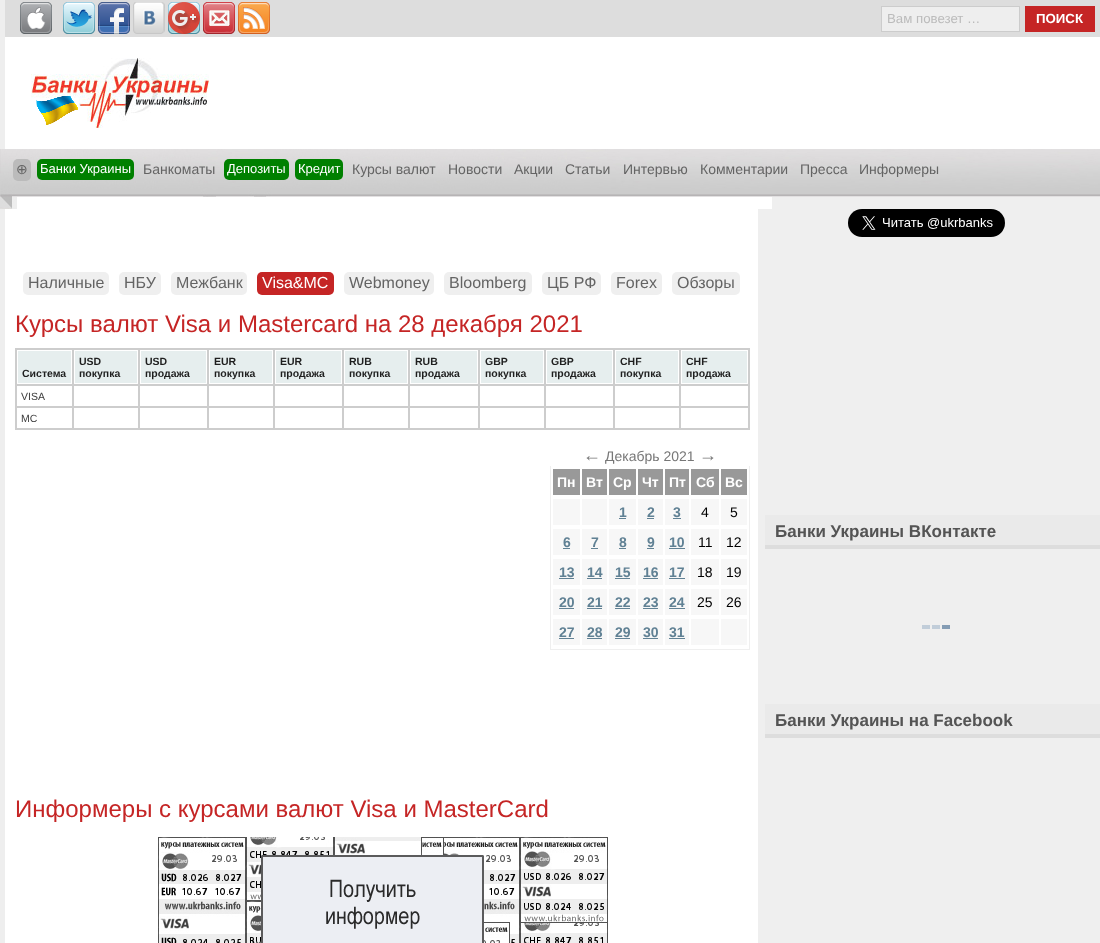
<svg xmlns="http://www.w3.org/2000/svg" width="1100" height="943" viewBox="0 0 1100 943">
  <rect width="100%" height="100%" fill="#dddddd"/>
  <rect x="0" y="0" width="5" height="149" fill="#eeeeee"/>
  <image x="20" y="2" width="32" height="32" href="img1.png"/>
  <image x="63" y="2" width="32" height="32" href="img2.png"/>
  <image x="98" y="2" width="32" height="32" href="img3.png"/>
  <image x="133" y="2" width="32" height="32" href="img4.png"/>
  <image x="168" y="2" width="32" height="32" href="img2.png"/>
  <image x="168" y="2" width="32" height="32" href="img5.png"/>
  <image x="203" y="2" width="32" height="32" href="img6.png"/>
  <image x="238" y="2" width="32" height="32" href="img7.png"/>
  <rect x="881.5" y="6.5" width="138" height="25" fill="#eeeeee" stroke="#cccccc"/>
  <text x="887" y="23" font-family="Liberation Sans" font-size="13.25" fill="#bbbbbb">Вам повезет …</text>
  <rect x="1025" y="6" width="70" height="26" fill="#c52525"/>
  <text x="1036" y="23" font-family="Liberation Sans" font-size="13.25" font-weight="bold" fill="#ffffff">ПОИСК</text>
  <rect x="5" y="37" width="1095" height="112" fill="#ffffff"/>
  <image x="31" y="58" width="178" height="70" href="img8.png"/>
  <image x="0" y="149" width="1100" height="60" href="img9.png"/>
  <rect x="13" y="159" width="18" height="22" rx="5" fill="#bbbbbb"/>
  <text x="16" y="174" font-family="DejaVu Sans" font-size="14" fill="#646464">⊕</text>
  <rect x="37" y="159" width="97" height="21" rx="5" fill="#008000"/>
  <text x="40" y="173" font-family="Liberation Sans" font-size="13" fill="#ffffff">Банки Украины</text>
  <text x="143" y="174" font-family="Liberation Sans" font-size="14" fill="#646464">Банкоматы</text>
  <rect x="224" y="159" width="65" height="21" rx="5" fill="#008000"/>
  <text x="227" y="173" font-family="Liberation Sans" font-size="13" fill="#ffffff">Депозиты</text>
  <rect x="295" y="159" width="48" height="21" rx="5" fill="#008000"/>
  <text x="298" y="173" font-family="Liberation Sans" font-size="13" fill="#ffffff">Кредит</text>
  <text x="352" y="174" font-family="Liberation Sans" font-size="14" fill="#646464">Курсы валют</text>
  <text x="448" y="174" font-family="Liberation Sans" font-size="14" fill="#646464">Новости</text>
  <text x="514" y="174" font-family="Liberation Sans" font-size="14" fill="#646464">Акции</text>
  <text x="565" y="174" font-family="Liberation Sans" font-size="14" fill="#646464">Статьи</text>
  <text x="623" y="174" font-family="Liberation Sans" font-size="14" fill="#646464">Интервью</text>
  <text x="700" y="174" font-family="Liberation Sans" font-size="14" fill="#646464">Комментарии</text>
  <text x="800" y="174" font-family="Liberation Sans" font-size="14" fill="#646464">Пресса</text>
  <text x="859" y="174" font-family="Liberation Sans" font-size="14" fill="#646464">Информеры</text>
  <rect x="5" y="209" width="753" height="734" fill="#ffffff"/>
  <rect x="758" y="209" width="342" height="734" fill="#efefef"/>
  <rect x="0" y="209" width="5" height="734" fill="#eeeeee"/>
  <rect x="23" y="272" width="86" height="23" rx="5" fill="#efefef"/>
  <text x="28" y="288" font-family="Liberation Sans" font-size="16" fill="#646464">Наличные</text>
  <rect x="119" y="272" width="42" height="23" rx="5" fill="#efefef"/>
  <text x="124" y="288" font-family="Liberation Sans" font-size="16" fill="#646464">НБУ</text>
  <rect x="171" y="272" width="76" height="23" rx="5" fill="#efefef"/>
  <text x="176" y="288" font-family="Liberation Sans" font-size="16" fill="#646464">Межбанк</text>
  <rect x="257" y="272" width="77" height="23" rx="5" fill="#c52525"/>
  <text x="262" y="288" font-family="Liberation Sans" font-size="16" fill="#ffffff">Visa&amp;MC</text>
  <rect x="344" y="272" width="90" height="23" rx="5" fill="#efefef"/>
  <text x="349" y="288" font-family="Liberation Sans" font-size="16" fill="#646464">Webmoney</text>
  <rect x="444" y="272" width="88" height="23" rx="5" fill="#efefef"/>
  <text x="449" y="288" font-family="Liberation Sans" font-size="16" fill="#646464">Bloomberg</text>
  <rect x="542" y="272" width="59" height="23" rx="5" fill="#efefef"/>
  <text x="547" y="288" font-family="Liberation Sans" font-size="16" fill="#646464">ЦБ РФ</text>
  <rect x="611" y="272" width="51" height="23" rx="5" fill="#efefef"/>
  <text x="616" y="288" font-family="Liberation Sans" font-size="16" fill="#646464">Forex</text>
  <rect x="672" y="272" width="68" height="23" rx="5" fill="#efefef"/>
  <text x="677" y="288" font-family="Liberation Sans" font-size="16" fill="#646464">Обзоры</text>
  <text x="15" y="332" font-family="Liberation Sans" font-size="24" fill="#c52525">Курсы валют Visa и Mastercard на 28 декабря 2021</text>
  <rect x="15" y="348" width="735" height="82" fill="#cdcdcd"/>
  <rect x="17.5" y="350.5" width="54" height="33" fill="#e6eeee" stroke="#ffffff"/>
  <text x="22" y="377" font-family="Liberation Sans" font-size="10.5" font-weight="bold" fill="#1f1f1f">Система</text>
  <rect x="74.5" y="350.5" width="63" height="33" fill="#e6eeee" stroke="#ffffff"/>
  <text x="79" y="365" font-family="Liberation Sans" font-size="10.5" font-weight="bold" fill="#1f1f1f">USD</text>
  <text x="79" y="377" font-family="Liberation Sans" font-size="10.5" font-weight="bold" fill="#1f1f1f">покупка</text>
  <rect x="140.5" y="350.5" width="66" height="33" fill="#e6eeee" stroke="#ffffff"/>
  <text x="145" y="365" font-family="Liberation Sans" font-size="10.5" font-weight="bold" fill="#1f1f1f">USD</text>
  <text x="145" y="377" font-family="Liberation Sans" font-size="10.5" font-weight="bold" fill="#1f1f1f">продажа</text>
  <rect x="209.5" y="350.5" width="63" height="33" fill="#e6eeee" stroke="#ffffff"/>
  <text x="214" y="365" font-family="Liberation Sans" font-size="10.5" font-weight="bold" fill="#1f1f1f">EUR</text>
  <text x="214" y="377" font-family="Liberation Sans" font-size="10.5" font-weight="bold" fill="#1f1f1f">покупка</text>
  <rect x="275.5" y="350.5" width="66" height="33" fill="#e6eeee" stroke="#ffffff"/>
  <text x="280" y="365" font-family="Liberation Sans" font-size="10.5" font-weight="bold" fill="#1f1f1f">EUR</text>
  <text x="280" y="377" font-family="Liberation Sans" font-size="10.5" font-weight="bold" fill="#1f1f1f">продажа</text>
  <rect x="344.5" y="350.5" width="63" height="33" fill="#e6eeee" stroke="#ffffff"/>
  <text x="349" y="365" font-family="Liberation Sans" font-size="10.5" font-weight="bold" fill="#1f1f1f">RUB</text>
  <text x="349" y="377" font-family="Liberation Sans" font-size="10.5" font-weight="bold" fill="#1f1f1f">покупка</text>
  <rect x="410.5" y="350.5" width="67" height="33" fill="#e6eeee" stroke="#ffffff"/>
  <text x="415" y="365" font-family="Liberation Sans" font-size="10.5" font-weight="bold" fill="#1f1f1f">RUB</text>
  <text x="415" y="377" font-family="Liberation Sans" font-size="10.5" font-weight="bold" fill="#1f1f1f">продажа</text>
  <rect x="480.5" y="350.5" width="63" height="33" fill="#e6eeee" stroke="#ffffff"/>
  <text x="485" y="365" font-family="Liberation Sans" font-size="10.5" font-weight="bold" fill="#1f1f1f">GBP</text>
  <text x="485" y="377" font-family="Liberation Sans" font-size="10.5" font-weight="bold" fill="#1f1f1f">покупка</text>
  <rect x="546.5" y="350.5" width="66" height="33" fill="#e6eeee" stroke="#ffffff"/>
  <text x="551" y="365" font-family="Liberation Sans" font-size="10.5" font-weight="bold" fill="#1f1f1f">GBP</text>
  <text x="551" y="377" font-family="Liberation Sans" font-size="10.5" font-weight="bold" fill="#1f1f1f">продажа</text>
  <rect x="615.5" y="350.5" width="63" height="33" fill="#e6eeee" stroke="#ffffff"/>
  <text x="620" y="365" font-family="Liberation Sans" font-size="10.5" font-weight="bold" fill="#1f1f1f">CHF</text>
  <text x="620" y="377" font-family="Liberation Sans" font-size="10.5" font-weight="bold" fill="#1f1f1f">покупка</text>
  <rect x="681.5" y="350.5" width="66" height="33" fill="#e6eeee" stroke="#ffffff"/>
  <text x="686" y="365" font-family="Liberation Sans" font-size="10.5" font-weight="bold" fill="#1f1f1f">CHF</text>
  <text x="686" y="377" font-family="Liberation Sans" font-size="10.5" font-weight="bold" fill="#1f1f1f">продажа</text>
  <rect x="17" y="386" width="55" height="20" fill="#ffffff"/>
  <text x="21" y="400" font-family="Liberation Sans" font-size="10.5" fill="#3d3d3d">VISA</text>
  <rect x="74" y="386" width="64" height="20" fill="#ffffff"/>
  <rect x="140" y="386" width="67" height="20" fill="#ffffff"/>
  <rect x="209" y="386" width="64" height="20" fill="#ffffff"/>
  <rect x="275" y="386" width="67" height="20" fill="#ffffff"/>
  <rect x="344" y="386" width="64" height="20" fill="#ffffff"/>
  <rect x="410" y="386" width="68" height="20" fill="#ffffff"/>
  <rect x="480" y="386" width="64" height="20" fill="#ffffff"/>
  <rect x="546" y="386" width="67" height="20" fill="#ffffff"/>
  <rect x="615" y="386" width="64" height="20" fill="#ffffff"/>
  <rect x="681" y="386" width="67" height="20" fill="#ffffff"/>
  <rect x="17" y="408" width="55" height="20" fill="#ffffff"/>
  <text x="21" y="422" font-family="Liberation Sans" font-size="10.5" fill="#3d3d3d">MC</text>
  <rect x="74" y="408" width="64" height="20" fill="#ffffff"/>
  <rect x="140" y="408" width="67" height="20" fill="#ffffff"/>
  <rect x="209" y="408" width="64" height="20" fill="#ffffff"/>
  <rect x="275" y="408" width="67" height="20" fill="#ffffff"/>
  <rect x="344" y="408" width="64" height="20" fill="#ffffff"/>
  <rect x="410" y="408" width="68" height="20" fill="#ffffff"/>
  <rect x="480" y="408" width="64" height="20" fill="#ffffff"/>
  <rect x="546" y="408" width="67" height="20" fill="#ffffff"/>
  <rect x="615" y="408" width="64" height="20" fill="#ffffff"/>
  <rect x="681" y="408" width="67" height="20" fill="#ffffff"/>
  <rect x="550.5" y="445.5" width="199" height="204" fill="none" stroke="#efefef"/>
  <rect x="550" y="445" width="200" height="21" fill="#ffffff"/>
  <text x="583" y="461" font-family="Liberation Sans" font-size="18" fill="#777777">←</text>
  <text x="605" y="461" font-family="Liberation Sans" font-size="14" fill="#777777">Декабрь 2021</text>
  <text x="699" y="461" font-family="Liberation Sans" font-size="18" fill="#777777">→</text>
  <rect x="553" y="469" width="27" height="26" fill="#999999"/>
  <text x="557" y="487" font-family="Liberation Sans" font-size="14" font-weight="bold" fill="#ffffff">Пн</text>
  <rect x="582" y="469" width="25" height="26" fill="#999999"/>
  <text x="586" y="487" font-family="Liberation Sans" font-size="14" font-weight="bold" fill="#ffffff">Вт</text>
  <rect x="609" y="469" width="27" height="26" fill="#999999"/>
  <text x="613" y="487" font-family="Liberation Sans" font-size="14" font-weight="bold" fill="#ffffff">Ср</text>
  <rect x="638" y="469" width="25" height="26" fill="#999999"/>
  <text x="642" y="487" font-family="Liberation Sans" font-size="14" font-weight="bold" fill="#ffffff">Чт</text>
  <rect x="665" y="469" width="24" height="26" fill="#999999"/>
  <text x="669" y="487" font-family="Liberation Sans" font-size="14" font-weight="bold" fill="#ffffff">Пт</text>
  <rect x="691" y="469" width="28" height="26" fill="#999999"/>
  <text x="696" y="487" font-family="Liberation Sans" font-size="14" font-weight="bold" fill="#ffffff">Сб</text>
  <rect x="721" y="469" width="26" height="26" fill="#999999"/>
  <text x="725" y="487" font-family="Liberation Sans" font-size="14" font-weight="bold" fill="#ffffff">Вс</text>
  <rect x="553" y="499" width="27" height="26" fill="#f7f7f7"/>
  <rect x="582" y="499" width="25" height="26" fill="#f7f7f7"/>
  <rect x="609" y="499" width="27" height="26" fill="#f7f7f7"/>
  <text x="619" y="517" font-family="Liberation Sans" font-size="14" font-weight="bold" fill="#608194">1</text>
  <rect x="619" y="518" width="7" height="1" fill="#608194"/>
  <rect x="638" y="499" width="25" height="26" fill="#f7f7f7"/>
  <text x="647" y="517" font-family="Liberation Sans" font-size="14" font-weight="bold" fill="#608194">2</text>
  <rect x="647" y="518" width="7" height="1" fill="#608194"/>
  <rect x="665" y="499" width="24" height="26" fill="#f7f7f7"/>
  <text x="673" y="517" font-family="Liberation Sans" font-size="14" font-weight="bold" fill="#608194">3</text>
  <rect x="673" y="518" width="8" height="1" fill="#608194"/>
  <rect x="691" y="499" width="28" height="26" fill="#f7f7f7"/>
  <text x="701" y="517" font-family="Liberation Sans" font-size="14" fill="#000000">4</text>
  <rect x="721" y="499" width="26" height="26" fill="#f7f7f7"/>
  <text x="730" y="517" font-family="Liberation Sans" font-size="14" fill="#000000">5</text>
  <rect x="553" y="529" width="27" height="26" fill="#f7f7f7"/>
  <text x="563" y="547" font-family="Liberation Sans" font-size="14" font-weight="bold" fill="#608194">6</text>
  <rect x="563" y="548" width="7" height="1" fill="#608194"/>
  <rect x="582" y="529" width="25" height="26" fill="#f7f7f7"/>
  <text x="591" y="547" font-family="Liberation Sans" font-size="14" font-weight="bold" fill="#608194">7</text>
  <rect x="591" y="548" width="7" height="1" fill="#608194"/>
  <rect x="609" y="529" width="27" height="26" fill="#f7f7f7"/>
  <text x="619" y="547" font-family="Liberation Sans" font-size="14" font-weight="bold" fill="#608194">8</text>
  <rect x="619" y="548" width="7" height="1" fill="#608194"/>
  <rect x="638" y="529" width="25" height="26" fill="#f7f7f7"/>
  <text x="647" y="547" font-family="Liberation Sans" font-size="14" font-weight="bold" fill="#608194">9</text>
  <rect x="647" y="548" width="7" height="1" fill="#608194"/>
  <rect x="665" y="529" width="24" height="26" fill="#f7f7f7"/>
  <text x="669" y="547" font-family="Liberation Sans" font-size="14" font-weight="bold" fill="#608194">10</text>
  <rect x="669" y="548" width="16" height="1" fill="#608194"/>
  <rect x="691" y="529" width="28" height="26" fill="#f7f7f7"/>
  <text x="698" y="547" font-family="Liberation Sans" font-size="14" fill="#000000">11</text>
  <rect x="721" y="529" width="26" height="26" fill="#f7f7f7"/>
  <text x="726" y="547" font-family="Liberation Sans" font-size="14" fill="#000000">12</text>
  <rect x="553" y="559" width="27" height="26" fill="#f7f7f7"/>
  <text x="559" y="577" font-family="Liberation Sans" font-size="14" font-weight="bold" fill="#608194">13</text>
  <rect x="559" y="578" width="15" height="1" fill="#608194"/>
  <rect x="582" y="559" width="25" height="26" fill="#f7f7f7"/>
  <text x="587" y="577" font-family="Liberation Sans" font-size="14" font-weight="bold" fill="#608194">14</text>
  <rect x="587" y="578" width="15" height="1" fill="#608194"/>
  <rect x="609" y="559" width="27" height="26" fill="#f7f7f7"/>
  <text x="615" y="577" font-family="Liberation Sans" font-size="14" font-weight="bold" fill="#608194">15</text>
  <rect x="615" y="578" width="15" height="1" fill="#608194"/>
  <rect x="638" y="559" width="25" height="26" fill="#f7f7f7"/>
  <text x="643" y="577" font-family="Liberation Sans" font-size="14" font-weight="bold" fill="#608194">16</text>
  <rect x="643" y="578" width="15" height="1" fill="#608194"/>
  <rect x="665" y="559" width="24" height="26" fill="#f7f7f7"/>
  <text x="669" y="577" font-family="Liberation Sans" font-size="14" font-weight="bold" fill="#608194">17</text>
  <rect x="669" y="578" width="16" height="1" fill="#608194"/>
  <rect x="691" y="559" width="28" height="26" fill="#f7f7f7"/>
  <text x="697" y="577" font-family="Liberation Sans" font-size="14" fill="#000000">18</text>
  <rect x="721" y="559" width="26" height="26" fill="#f7f7f7"/>
  <text x="726" y="577" font-family="Liberation Sans" font-size="14" fill="#000000">19</text>
  <rect x="553" y="589" width="27" height="26" fill="#f7f7f7"/>
  <text x="559" y="607" font-family="Liberation Sans" font-size="14" font-weight="bold" fill="#608194">20</text>
  <rect x="559" y="608" width="15" height="1" fill="#608194"/>
  <rect x="582" y="589" width="25" height="26" fill="#f7f7f7"/>
  <text x="587" y="607" font-family="Liberation Sans" font-size="14" font-weight="bold" fill="#608194">21</text>
  <rect x="587" y="608" width="15" height="1" fill="#608194"/>
  <rect x="609" y="589" width="27" height="26" fill="#f7f7f7"/>
  <text x="615" y="607" font-family="Liberation Sans" font-size="14" font-weight="bold" fill="#608194">22</text>
  <rect x="615" y="608" width="15" height="1" fill="#608194"/>
  <rect x="638" y="589" width="25" height="26" fill="#f7f7f7"/>
  <text x="643" y="607" font-family="Liberation Sans" font-size="14" font-weight="bold" fill="#608194">23</text>
  <rect x="643" y="608" width="15" height="1" fill="#608194"/>
  <rect x="665" y="589" width="24" height="26" fill="#f7f7f7"/>
  <text x="669" y="607" font-family="Liberation Sans" font-size="14" font-weight="bold" fill="#608194">24</text>
  <rect x="669" y="608" width="16" height="1" fill="#608194"/>
  <rect x="691" y="589" width="28" height="26" fill="#f7f7f7"/>
  <text x="697" y="607" font-family="Liberation Sans" font-size="14" fill="#000000">25</text>
  <rect x="721" y="589" width="26" height="26" fill="#f7f7f7"/>
  <text x="726" y="607" font-family="Liberation Sans" font-size="14" fill="#000000">26</text>
  <rect x="553" y="619" width="27" height="26" fill="#f7f7f7"/>
  <text x="559" y="637" font-family="Liberation Sans" font-size="14" font-weight="bold" fill="#608194">27</text>
  <rect x="559" y="638" width="15" height="1" fill="#608194"/>
  <rect x="582" y="619" width="25" height="26" fill="#f7f7f7"/>
  <text x="587" y="637" font-family="Liberation Sans" font-size="14" font-weight="bold" fill="#608194">28</text>
  <rect x="587" y="638" width="15" height="1" fill="#608194"/>
  <rect x="609" y="619" width="27" height="26" fill="#f7f7f7"/>
  <text x="615" y="637" font-family="Liberation Sans" font-size="14" font-weight="bold" fill="#608194">29</text>
  <rect x="615" y="638" width="15" height="1" fill="#608194"/>
  <rect x="638" y="619" width="25" height="26" fill="#f7f7f7"/>
  <text x="643" y="637" font-family="Liberation Sans" font-size="14" font-weight="bold" fill="#608194">30</text>
  <rect x="643" y="638" width="15" height="1" fill="#608194"/>
  <rect x="665" y="619" width="24" height="26" fill="#f7f7f7"/>
  <text x="669" y="637" font-family="Liberation Sans" font-size="14" font-weight="bold" fill="#608194">31</text>
  <rect x="669" y="638" width="16" height="1" fill="#608194"/>
  <rect x="691" y="619" width="28" height="26" fill="#f7f7f7"/>
  <rect x="721" y="619" width="26" height="26" fill="#f7f7f7"/>
  <text x="15" y="817" font-family="Liberation Sans" font-size="24" fill="#c52525">Информеры с курсами валют Visa и MasterCard</text>
  <image x="158" y="837" width="450" height="106" href="img10.png"/>
  <image x="848" y="209" width="157" height="28" href="img11.png"/>
  <rect x="765" y="515" width="335" height="30" fill="#eaeaea"/>
  <rect x="765" y="545" width="335" height="4" fill="#dddddd"/>
  <text x="775" y="537" font-family="Liberation Sans" font-size="17" font-weight="bold" fill="#545454">Банки Украины ВКонтакте</text>
  <image x="922" y="625" width="28" height="4" href="img12.png"/>
  <rect x="765" y="704" width="335" height="30" fill="#eaeaea"/>
  <rect x="765" y="734" width="335" height="4" fill="#dddddd"/>
  <text x="775" y="726" font-family="Liberation Sans" font-size="17" font-weight="bold" fill="#545454">Банки Украины на Facebook</text>
</svg>
